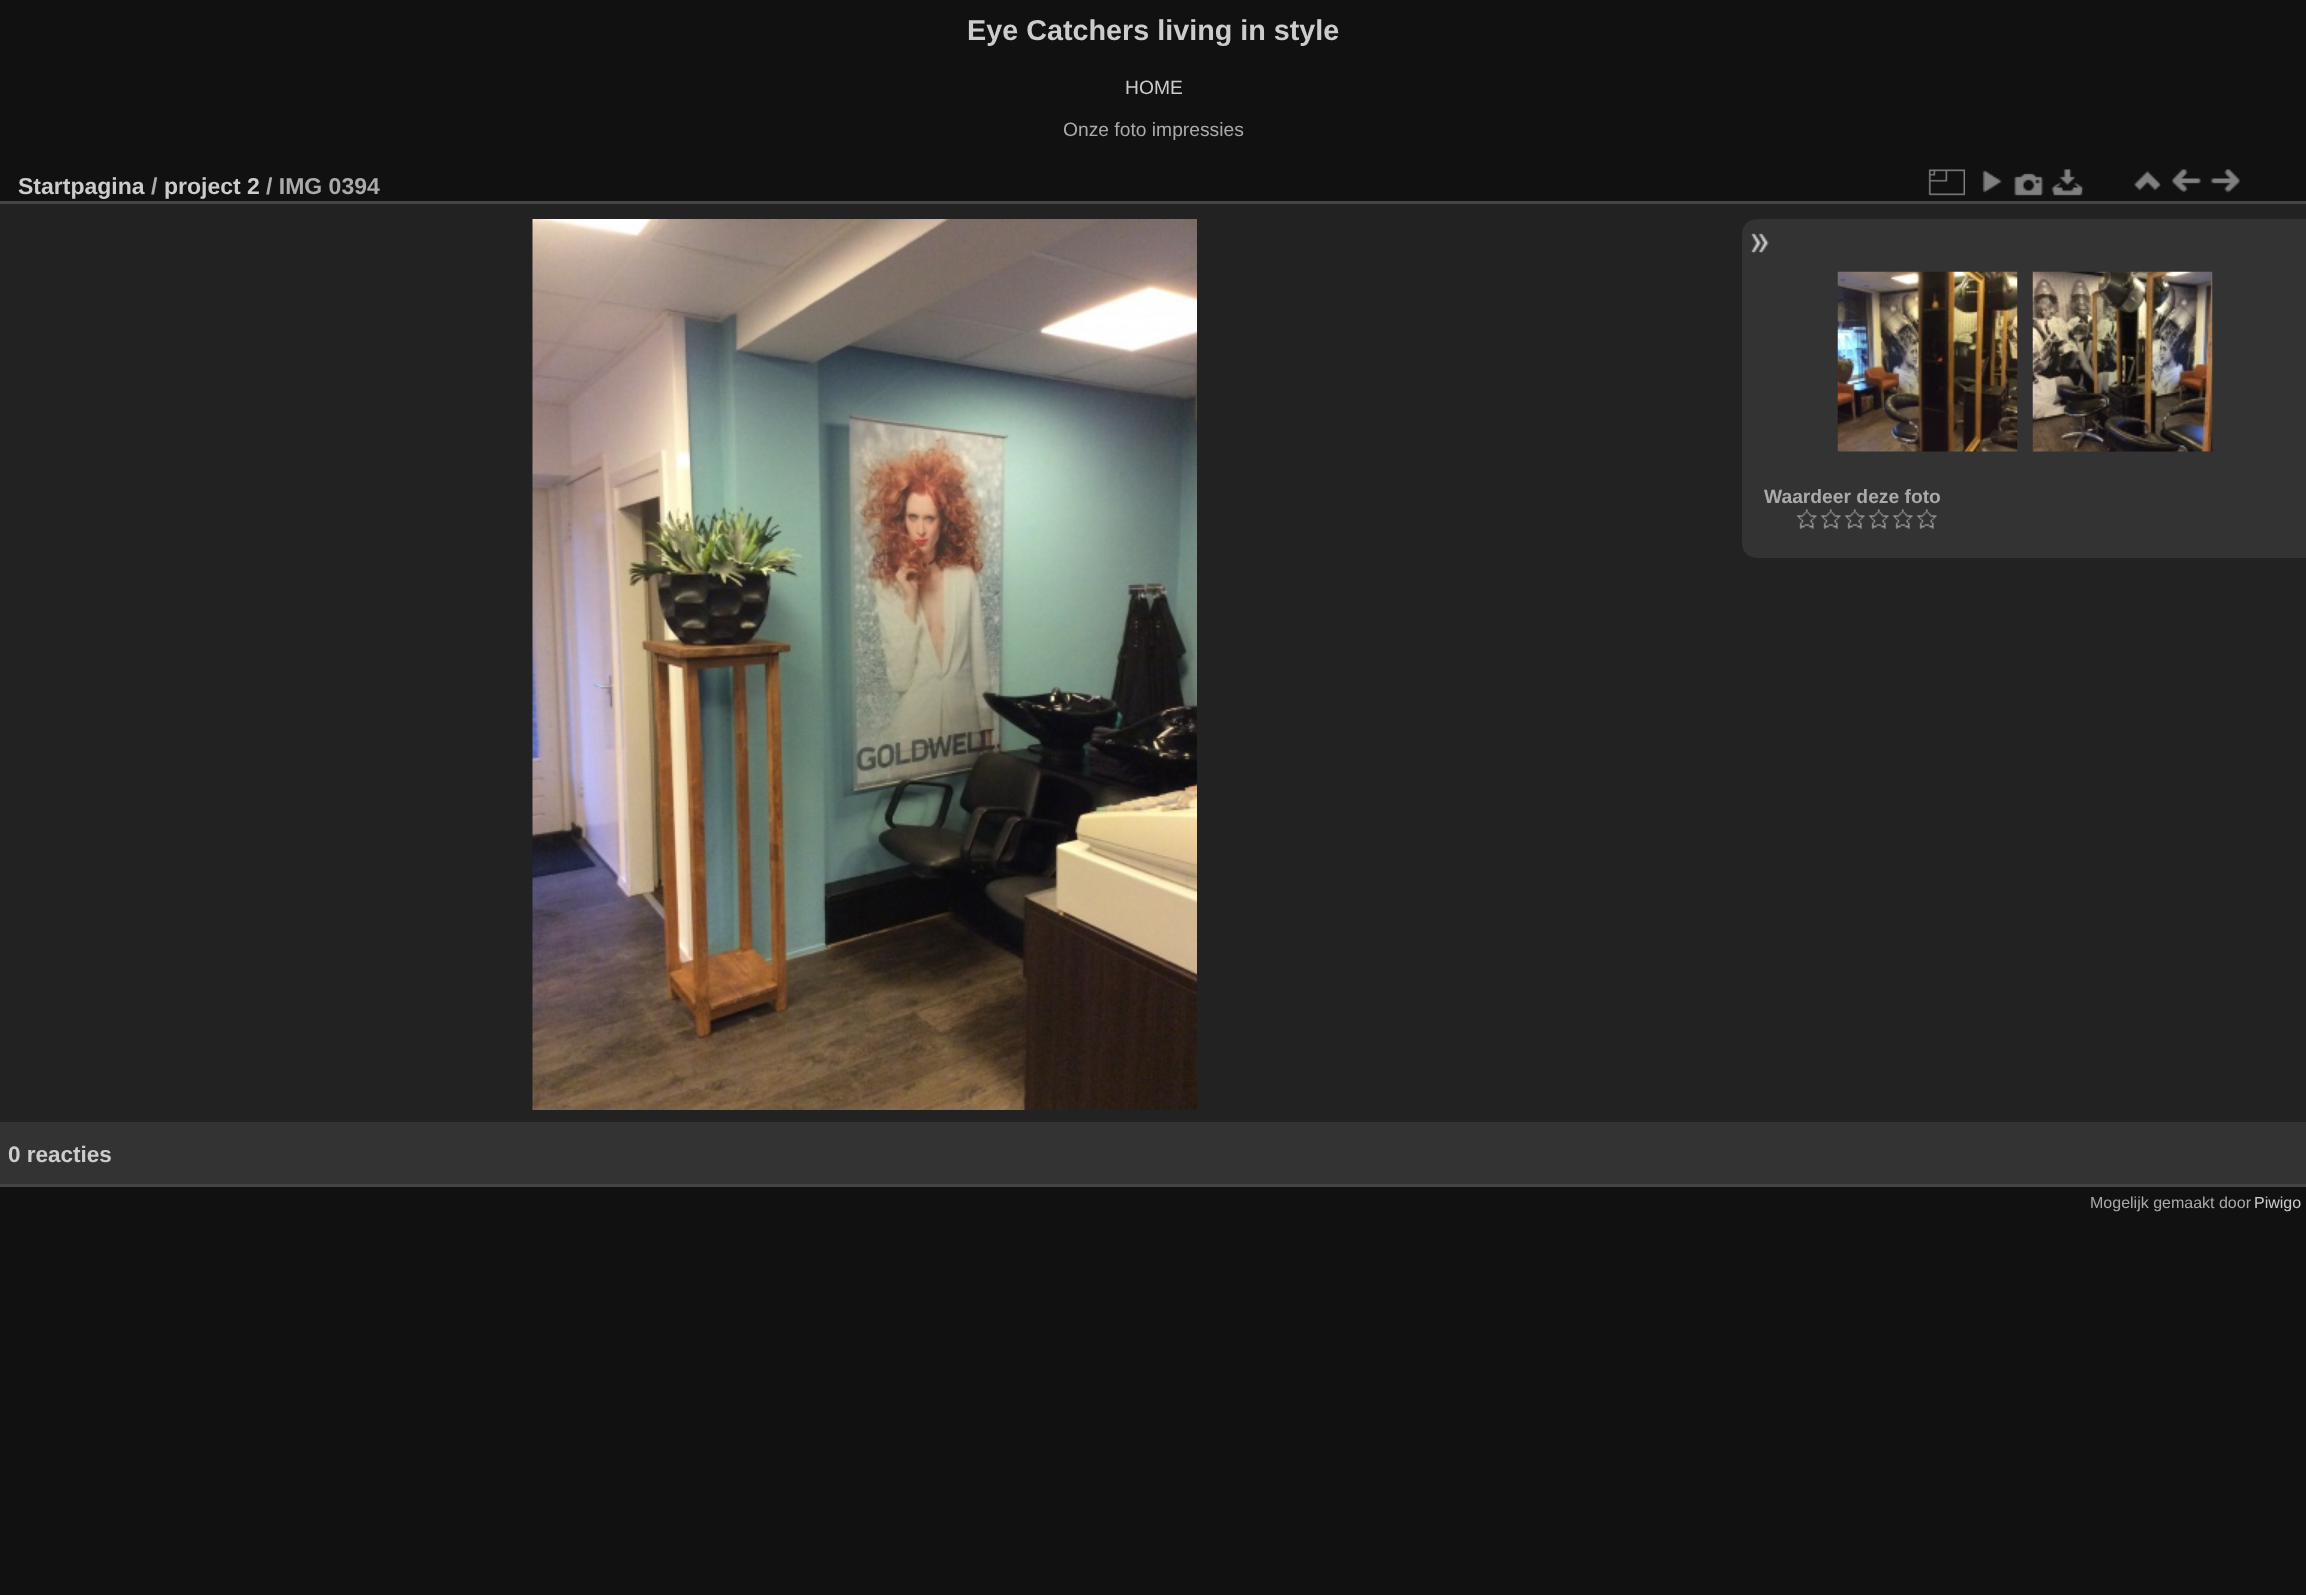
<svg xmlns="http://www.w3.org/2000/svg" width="2306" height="1595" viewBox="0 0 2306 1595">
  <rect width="100%" height="100%" fill="#111111"/>
  <text x="967" y="40" font-family="Liberation Sans" font-size="28.75" font-weight="bold" fill="#cccccc">Eye Catchers living in style</text>
  <text x="1125" y="94" font-family="Liberation Sans" font-size="19.25" fill="#cccccc">HOME</text>
  <text x="1063" y="136" font-family="Liberation Sans" font-size="19.25" fill="#aaaaaa">Onze foto impressies</text>
  <rect x="0" y="204" width="2306" height="918" fill="#222222"/>
  <rect x="0" y="1184" width="2306" height="3" fill="#444444"/>
  <rect x="0" y="201" width="2306" height="3" fill="#444444"/>
  <text x="18" y="194" font-family="Liberation Sans" font-size="23" font-weight="bold" fill="#cccccc">Startpagina</text>
  <text x="151" y="194" font-family="Liberation Sans" font-size="23" font-weight="bold" fill="#aaaaaa">/</text>
  <text x="164" y="194" font-family="Liberation Sans" font-size="23" font-weight="bold" fill="#cccccc">project 2</text>
  <text x="266" y="194" font-family="Liberation Sans" font-size="23" font-weight="bold" fill="#aaaaaa">/ IMG 0394</text>
  <image x="1928" y="169" width="37" height="27" href="img1.png"/>
  <image x="1982" y="170" width="20" height="23" href="img2.png"/>
  <image x="2014" y="173" width="30" height="23" href="img3.png"/>
  <image x="2051" y="169" width="33" height="27" href="img4.png"/>
  <image x="2134" y="170" width="27" height="21" href="img5.png"/>
  <image x="2171" y="169" width="30" height="24" href="img6.png"/>
  <image x="2210" y="169" width="30" height="24" href="img7.png"/>
  <image x="532" y="219" width="665" height="891" href="img8.png"/>
  <path d="M1757 219H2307V558H1757C1748.5 558 1742 551.5 1742 543V234C1742 225.5 1748.5 219 1757 219Z" fill="#333333"/>
  <image x="1751" y="233" width="18" height="20" href="img9.png"/>
  <image x="1837" y="271" width="181" height="181" href="img10.png"/>
  <image x="2032" y="271" width="181" height="181" href="img11.png"/>
  <text x="1764" y="503" font-family="Liberation Sans" font-size="19.25" font-weight="bold" fill="#aaaaaa">Waardeer deze foto</text>
  <image x="1796" y="509" width="21" height="20" href="img12.png"/>
  <image x="1820" y="509" width="21" height="20" href="img13.png"/>
  <image x="1844" y="509" width="21" height="20" href="img13.png"/>
  <image x="1868" y="509" width="21" height="20" href="img13.png"/>
  <image x="1892" y="509" width="21" height="20" href="img13.png"/>
  <image x="1916" y="509" width="21" height="20" href="img13.png"/>
  <rect x="0" y="1122" width="2306" height="62" fill="#333333"/>
  <text x="8" y="1162" font-family="Liberation Sans" font-size="22.5" font-weight="bold" fill="#cccccc">0 reacties</text>
  <text x="2090" y="1208" font-family="Liberation Sans" font-size="16" fill="#aaaaaa">Mogelijk gemaakt door</text>
  <text x="2254" y="1208" font-family="Liberation Sans" font-size="16" fill="#cccccc">Piwigo</text>
</svg>
